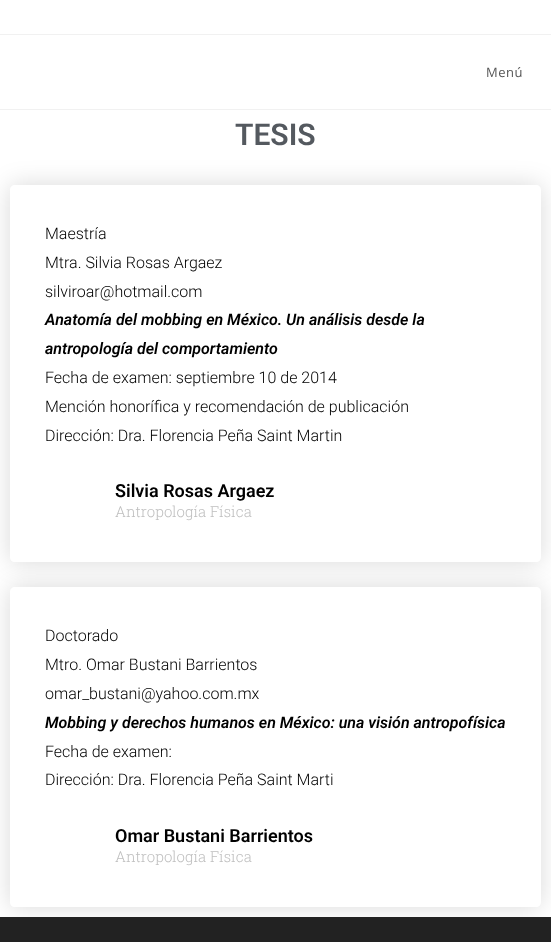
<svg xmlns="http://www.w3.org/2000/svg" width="551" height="942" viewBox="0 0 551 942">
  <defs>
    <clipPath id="clip1"><path d="M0 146H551V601H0ZM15 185H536C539 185 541 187 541 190V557C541 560 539 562 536 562H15C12 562 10 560 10 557V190C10 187 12 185 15 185Z" clip-rule="evenodd"/></clipPath>
    <filter id="blur1" x="-50%" y="-200%" width="200%" height="500%"><feGaussianBlur stdDeviation="12.5"/></filter>
    <clipPath id="clip2"><path d="M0 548H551V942H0ZM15 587H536C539 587 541 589 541 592V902C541 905 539 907 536 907H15C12 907 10 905 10 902V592C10 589 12 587 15 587Z" clip-rule="evenodd"/></clipPath>
  </defs>
  <rect width="100%" height="100%" fill="#ffffff"/>
  <rect x="0" y="34" width="551" height="1" fill="#f1f1f1"/>
  <rect x="0" y="109" width="551" height="1" fill="#f1f1f1"/>
  <text x="486" y="77" font-family="Open Sans" font-size="13" letter-spacing="0.5" fill="#555555">Menú</text>
  <text x="235" y="145" font-family="Roboto" font-size="30" font-weight="600" fill="#54595f">TESIS</text>
  <g clip-path="url(#clip1)">
    <rect x="10" y="185" width="531" height="377" rx="5" fill="#000000" fill-opacity="0.15" filter="url(#blur1)"/>
  </g>
  <text x="45" y="239" font-family="Roboto" font-size="16" font-weight="300" fill="#000000">Maestría</text>
  <text x="45" y="268" font-family="Roboto" font-size="16" font-weight="300" fill="#000000">Mtra. Silvia Rosas Argaez</text>
  <text x="45" y="297" font-family="Roboto" font-size="16" font-weight="300" fill="#000000">silviroar@hotmail.com</text>
  <text x="45" y="325" font-family="Roboto" font-size="16" font-weight="600" font-style="italic" fill="#000000">Anatomía del mobbing en México. Un análisis desde la</text>
  <text x="45" y="354" font-family="Roboto" font-size="16" font-weight="600" font-style="italic" fill="#000000">antropología del comportamiento</text>
  <text x="45" y="383" font-family="Roboto" font-size="16" font-weight="300" fill="#000000">Fecha de examen: septiembre 10 de 2014</text>
  <text x="45" y="412" font-family="Roboto" font-size="16" font-weight="300" fill="#000000">Mención honorífica y recomendación de publicación</text>
  <text x="45" y="441" font-family="Roboto" font-size="16" font-weight="300" fill="#000000">Dirección: Dra. Florencia Peña Saint Martin</text>
  <text x="115" y="497" font-family="Roboto" font-size="18" font-weight="600" fill="#000000">Silvia Rosas Argaez</text>
  <text x="115" y="517" font-family="Roboto Slab" font-size="15" font-weight="300" fill="#bfbfbf">Antropología Física</text>
  <g clip-path="url(#clip2)">
    <rect x="10" y="587" width="531" height="320" rx="5" fill="#000000" fill-opacity="0.15" filter="url(#blur1)"/>
  </g>
  <text x="45" y="641" font-family="Roboto" font-size="16" font-weight="300" fill="#000000">Doctorado</text>
  <text x="45" y="670" font-family="Roboto" font-size="16" font-weight="300" fill="#000000">Mtro. Omar Bustani Barrientos</text>
  <text x="45" y="699" font-family="Roboto" font-size="16" font-weight="300" fill="#000000">omar_bustani@yahoo.com.mx</text>
  <text x="45" y="728" font-family="Roboto" font-size="16" font-weight="600" font-style="italic" fill="#000000">Mobbing y derechos humanos en México: una visión antropofísica</text>
  <text x="45" y="757" font-family="Roboto" font-size="16" font-weight="300" fill="#000000">Fecha de examen:</text>
  <text x="45" y="785" font-family="Roboto" font-size="16" font-weight="300" fill="#000000">Dirección: Dra. Florencia Peña Saint Marti</text>
  <text x="115" y="842" font-family="Roboto" font-size="18" font-weight="600" fill="#000000">Omar Bustani Barrientos</text>
  <text x="115" y="862" font-family="Roboto Slab" font-size="15" font-weight="300" fill="#bfbfbf">Antropología Física</text>
  <rect x="0" y="917" width="551" height="25" fill="#222222"/>
</svg>
